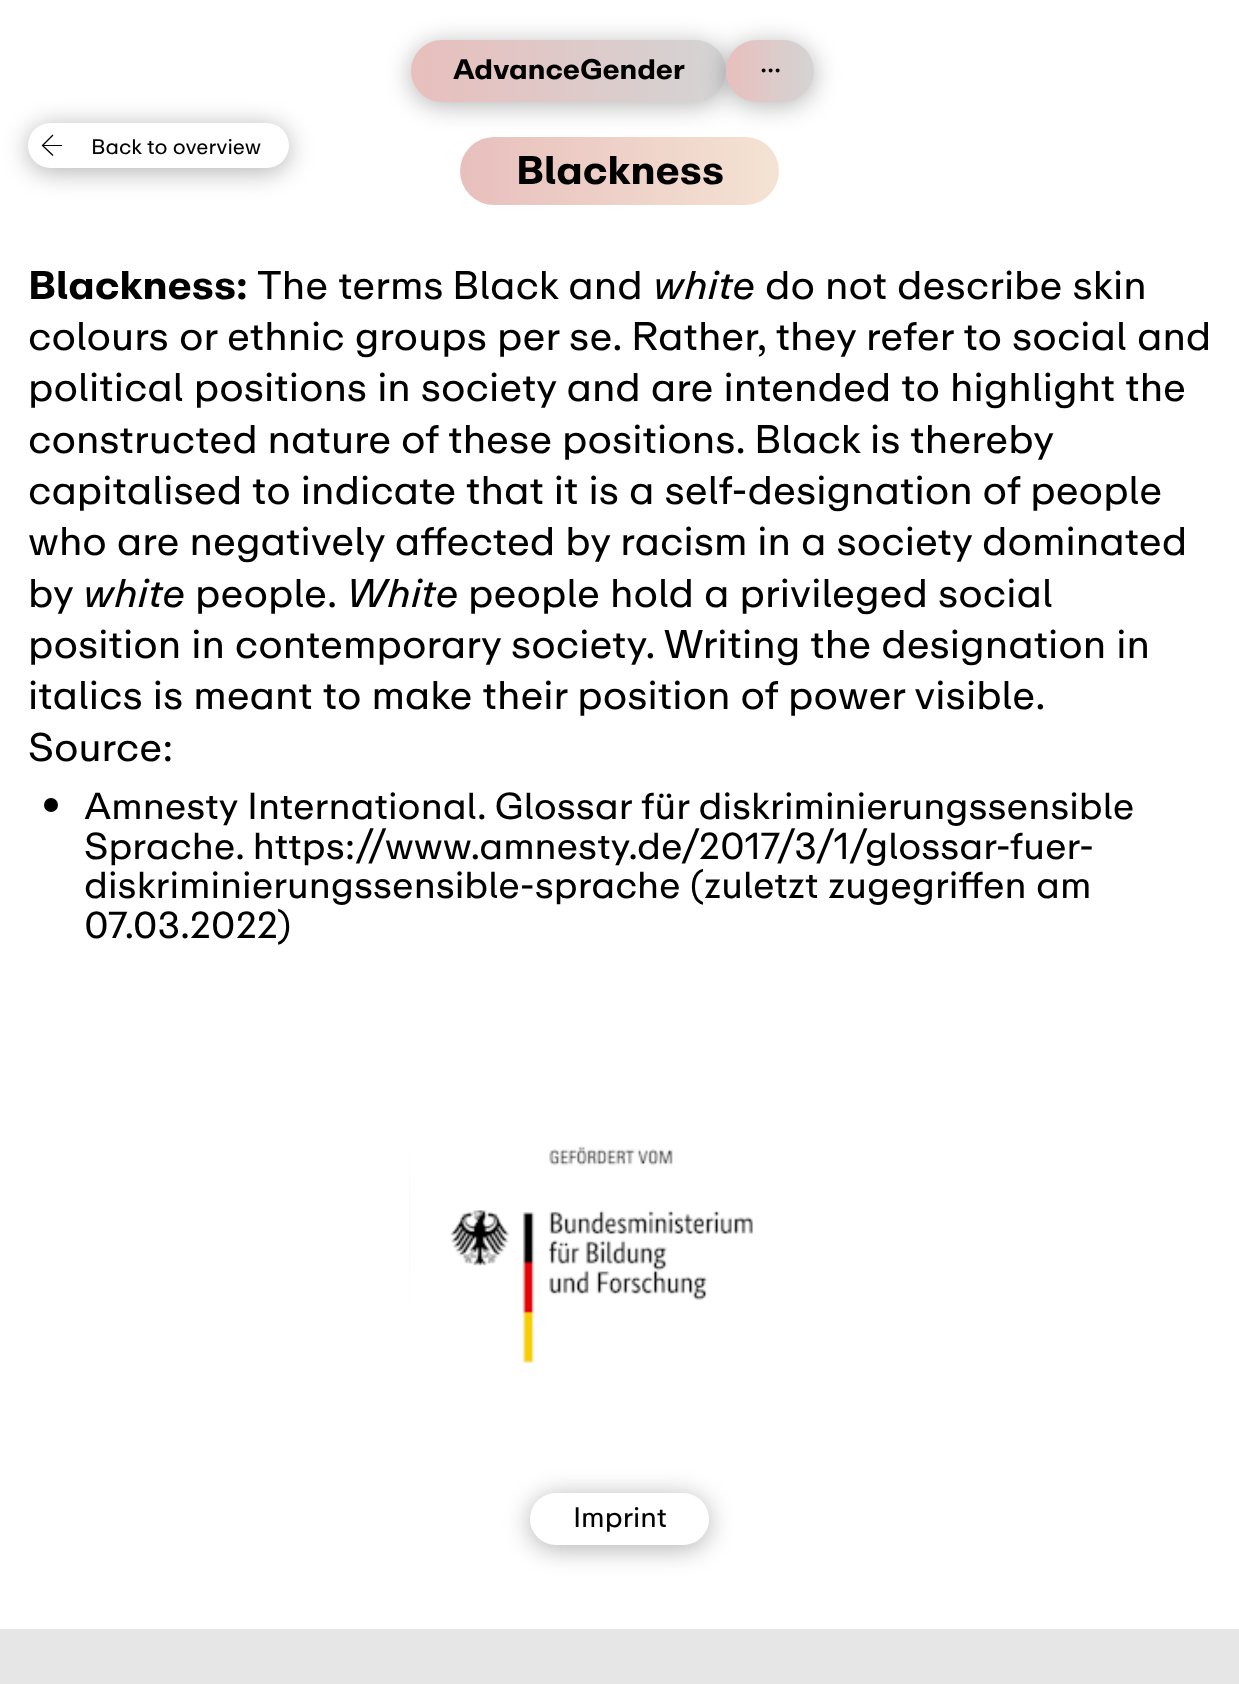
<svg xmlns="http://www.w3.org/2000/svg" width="1239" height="1684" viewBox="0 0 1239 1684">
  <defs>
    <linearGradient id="g1" gradientUnits="userSpaceOnUse" x1="460" y1="171" x2="779" y2="171"><stop offset="0" stop-color="#e8bfbd"/><stop offset="1" stop-color="#f4e3d3"/></linearGradient>
    <filter id="blur1" x="-50%" y="-200%" width="200%" height="500%"><feGaussianBlur stdDeviation="13"/></filter>
    <linearGradient id="g2" gradientUnits="userSpaceOnUse" x1="411" y1="71" x2="726" y2="71"><stop offset="0" stop-color="#e8bfbd"/><stop offset="1" stop-color="#d4d4d4"/></linearGradient>
    <linearGradient id="g3" gradientUnits="userSpaceOnUse" x1="726" y1="71" x2="814" y2="71"><stop offset="0" stop-color="#e8bfbd"/><stop offset="1" stop-color="#d4d4d4"/></linearGradient>
  </defs>
  <rect width="100%" height="100%" fill="#e6e6e6"/>
  <rect x="0" y="0" width="1239" height="1629" fill="#ffffff"/>
  <rect x="460" y="137" width="319" height="68" rx="34" fill="url(#g1)"/>
  <rect x="411" y="44" width="315" height="61" rx="30.5" fill="#000000" fill-opacity="0.3" filter="url(#blur1)"/>
  <rect x="411" y="40" width="315" height="62" rx="31" fill="url(#g2)"/>
  <text x="453" y="79" font-family="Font" font-size="28" font-weight="bold" fill="#000000">AdvanceGender</text>
  <rect x="726" y="44" width="88" height="61" rx="30.5" fill="#000000" fill-opacity="0.3" filter="url(#blur1)"/>
  <rect x="726" y="40" width="88" height="62" rx="31" fill="url(#g3)"/>
  <text x="760" y="72" font-family="Font" font-size="28" fill="#000000">...</text>
  <rect x="28" y="126" width="261" height="46" rx="23" fill="#000000" fill-opacity="0.3" filter="url(#blur1)"/>
  <rect x="28" y="123" width="261" height="45" rx="22.5" fill="#ffffff"/>
  <path d="M53 155.5L42.5 145.5L53 135" fill="none" stroke="#000000" stroke-width="1.3"/>
  <rect x="43" y="145" width="19" height="1" fill="#000000"/>
  <text x="91" y="154" font-family="Font" font-size="21" fill="#000000">Back to overview</text>
  <text x="516" y="184" font-family="Font" font-size="39.7" font-weight="bold" fill="#000000">Blackness</text>
  <text x="28" y="299" font-family="Font" font-size="39.7" font-weight="bold" fill="#000000">Blackness:</text>
  <text x="257" y="299" font-family="Font" font-size="39.7" fill="#000000">The terms</text>
  <text x="452" y="299" font-family="Font" font-size="39.7" fill="#000000">Black and</text>
  <text x="653" y="299" font-family="Font" font-size="39.7" font-style="italic" fill="#000000">white</text>
  <text x="765" y="299" font-family="Font" font-size="39.7" fill="#000000">do not describe skin</text>
  <text x="28" y="350" font-family="Font" font-size="39.7" fill="#000000">colours or ethnic groups per se. Rather, they refer to social and</text>
  <text x="28" y="401" font-family="Font" font-size="39.7" fill="#000000">political positions in society and are intended to highlight the</text>
  <text x="28" y="453" word-spacing="-0.25" font-family="Font" font-size="39.7" fill="#000000">constructed nature of these positions. Black is thereby</text>
  <text x="28" y="504" font-family="Font" font-size="39.7" fill="#000000">capitalised to indicate that it is a self-designation of people</text>
  <text x="28" y="555" font-family="Font" font-size="39.7" fill="#000000">who are negatively affected by racism in a society dominated</text>
  <text x="28" y="607" font-family="Font" font-size="39.7" fill="#000000">by</text>
  <text x="83" y="607" font-family="Font" font-size="39.7" font-style="italic" fill="#000000">white</text>
  <text x="195" y="607" font-family="Font" font-size="39.7" fill="#000000">people.</text>
  <text x="346" y="607" font-family="Font" font-size="39.7" font-style="italic" fill="#000000">White</text>
  <text x="468" y="607" font-family="Font" font-size="39.7" fill="#000000">people hold a privileged social</text>
  <text x="28" y="658" font-family="Font" font-size="39.7" fill="#000000">position in contemporary society. Writing the designation in</text>
  <text x="28" y="709" font-family="Font" font-size="39.7" fill="#000000">italics is meant to make their position of power visible.</text>
  <text x="28" y="761" font-family="Font" font-size="39.7" fill="#000000">Source:</text>
  <circle cx="51" cy="805" r="7" fill="#000000"/>
  <text x="84" y="819" font-family="Font" font-size="37.3" fill="#000000">Amnesty International. Glossar für diskriminierungssensible</text>
  <text x="84" y="859" font-family="Font" font-size="37.3" fill="#000000">Sprache. https://www.amnesty.de/2017/3/1/glossar-fuer-</text>
  <text x="84" y="898" font-family="Font" font-size="37.3" fill="#000000">diskriminierungssensible-sprache (zuletzt zugegriffen am</text>
  <text x="84" y="938" font-family="Font" font-size="37.3" fill="#000000">07.03.2022)</text>
  <image x="409" y="1114" width="358" height="294" href="img1.png"/>
  <image x="410" y="1114" width="357" height="294" href="img2.png"/>
  <rect x="530" y="1496" width="179" height="53" rx="26.5" fill="#000000" fill-opacity="0.3" filter="url(#blur1)"/>
  <rect x="530" y="1493" width="179" height="52" rx="26" fill="#ffffff"/>
  <text x="573" y="1527" font-family="Font" font-size="28" fill="#000000">Imprint</text>
</svg>
